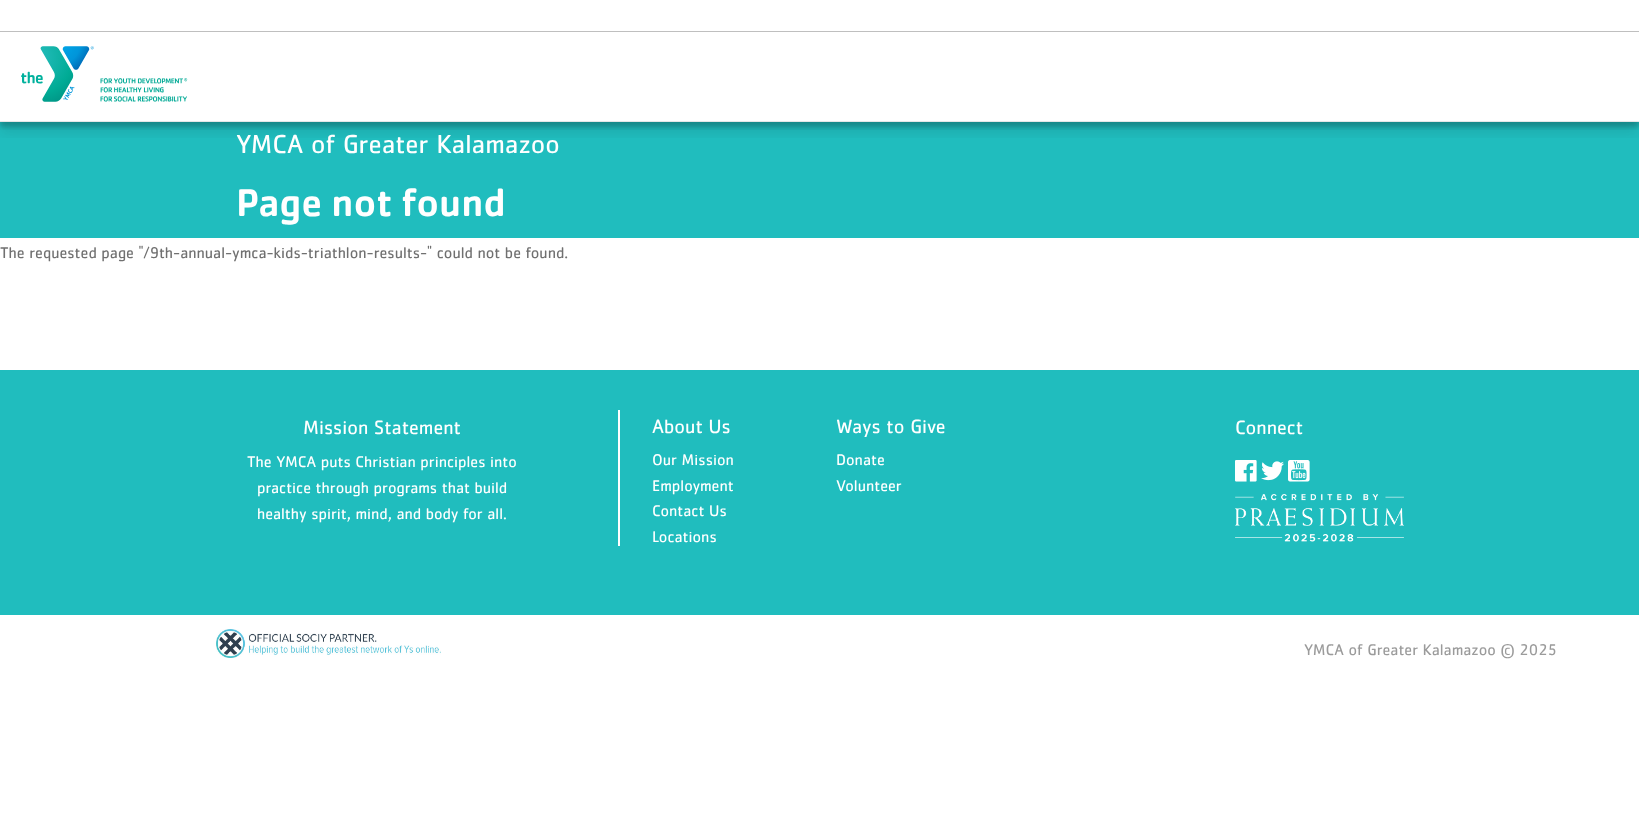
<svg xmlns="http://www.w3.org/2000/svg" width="1639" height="824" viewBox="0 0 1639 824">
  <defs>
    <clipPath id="clip1"><rect x="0" y="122" width="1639" height="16"/></clipPath>
    <filter id="blur1" x="-50%" y="-200%" width="200%" height="500%"><feGaussianBlur stdDeviation="7"/></filter>
    <clipPath id="clip2"><rect x="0" y="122" width="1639" height="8"/></clipPath>
    <filter id="blur2" x="-50%" y="-200%" width="200%" height="500%"><feGaussianBlur stdDeviation="2.5"/></filter>
  </defs>
  <rect width="100%" height="100%" fill="#ffffff"/>
  <rect x="0" y="31" width="1639" height="1" fill="#bfbfbf"/>
  <rect x="0" y="122" width="1639" height="116" fill="#20bdbe"/>
  <g clip-path="url(#clip1)">
    <rect x="0" y="42" width="1639" height="90" fill="#000000" fill-opacity="0.1" filter="url(#blur1)"/>
  </g>
  <g clip-path="url(#clip2)">
    <rect x="0" y="37" width="1639" height="90" fill="#000000" fill-opacity="0.2" filter="url(#blur2)"/>
  </g>
  <rect x="0" y="121" width="1639" height="1" fill="#e6e6e6"/>
  <image x="21" y="46" width="167" height="56" href="img1.png"/>
  <text x="236" y="153" font-family="'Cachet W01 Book'" font-size="27" fill="#ffffff">YMCA of Greater Kalamazoo</text>
  <text x="236" y="216" font-family="'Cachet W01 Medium'" font-size="40" font-weight="500" fill="#ffffff">Page not found</text>
  <text x="0" y="258" font-family="'Cachet W01 Book'" font-size="16" fill="#707070">The requested page "/9th-annual-ymca-kids-triathlon-results-" could not be found.</text>
  <rect x="0" y="370" width="1639" height="245" fill="#20bdbe"/>
  <rect x="618" y="410" width="2" height="136" fill="#ffffff"/>
  <text x="303" y="434" font-family="'Cachet W01 Book'" font-size="20" fill="#ffffff">Mission Statement</text>
  <text x="247" y="467" font-family="'Cachet W01 Book'" font-size="16" fill="#ffffff">The YMCA puts Christian principles into</text>
  <text x="257" y="493" font-family="'Cachet W01 Book'" font-size="16" fill="#ffffff">practice through programs that build</text>
  <text x="257" y="519" font-family="'Cachet W01 Book'" font-size="16" fill="#ffffff">healthy spirit, mind, and body for all.</text>
  <text x="652" y="433" font-family="'Cachet W01 Book'" font-size="20" fill="#ffffff">About Us</text>
  <text x="652" y="465" font-family="'Cachet W01 Book'" font-size="16" fill="#ffffff">Our Mission</text>
  <text x="652" y="491" font-family="'Cachet W01 Book'" font-size="16" fill="#ffffff">Employment</text>
  <text x="652" y="516" font-family="'Cachet W01 Book'" font-size="16" fill="#ffffff">Contact Us</text>
  <text x="652" y="542" font-family="'Cachet W01 Book'" font-size="16" fill="#ffffff">Locations</text>
  <text x="836" y="433" font-family="'Cachet W01 Book'" font-size="20" fill="#ffffff">Ways to Give</text>
  <text x="836" y="465" font-family="'Cachet W01 Book'" font-size="16" fill="#ffffff">Donate</text>
  <text x="836" y="491" font-family="'Cachet W01 Book'" font-size="16" fill="#ffffff">Volunteer</text>
  <text x="1235" y="434" font-family="'Cachet W01 Book'" font-size="20" fill="#ffffff">Connect</text>
  <image x="1235" y="460" width="22" height="22" href="img2.png"/>
  <image x="1261" y="461" width="23" height="20" href="img3.png"/>
  <image x="1288" y="460" width="22" height="22" href="img4.png"/>
  <image x="1235" y="494" width="169" height="48" href="img5.png"/>
  <image x="216" y="629" width="225" height="29" href="img6.png"/>
  <text x="1304" y="655" font-family="'Cachet W01 Book'" font-size="16" fill="#9b9b9b">YMCA of Greater Kalamazoo © 2025</text>
</svg>
